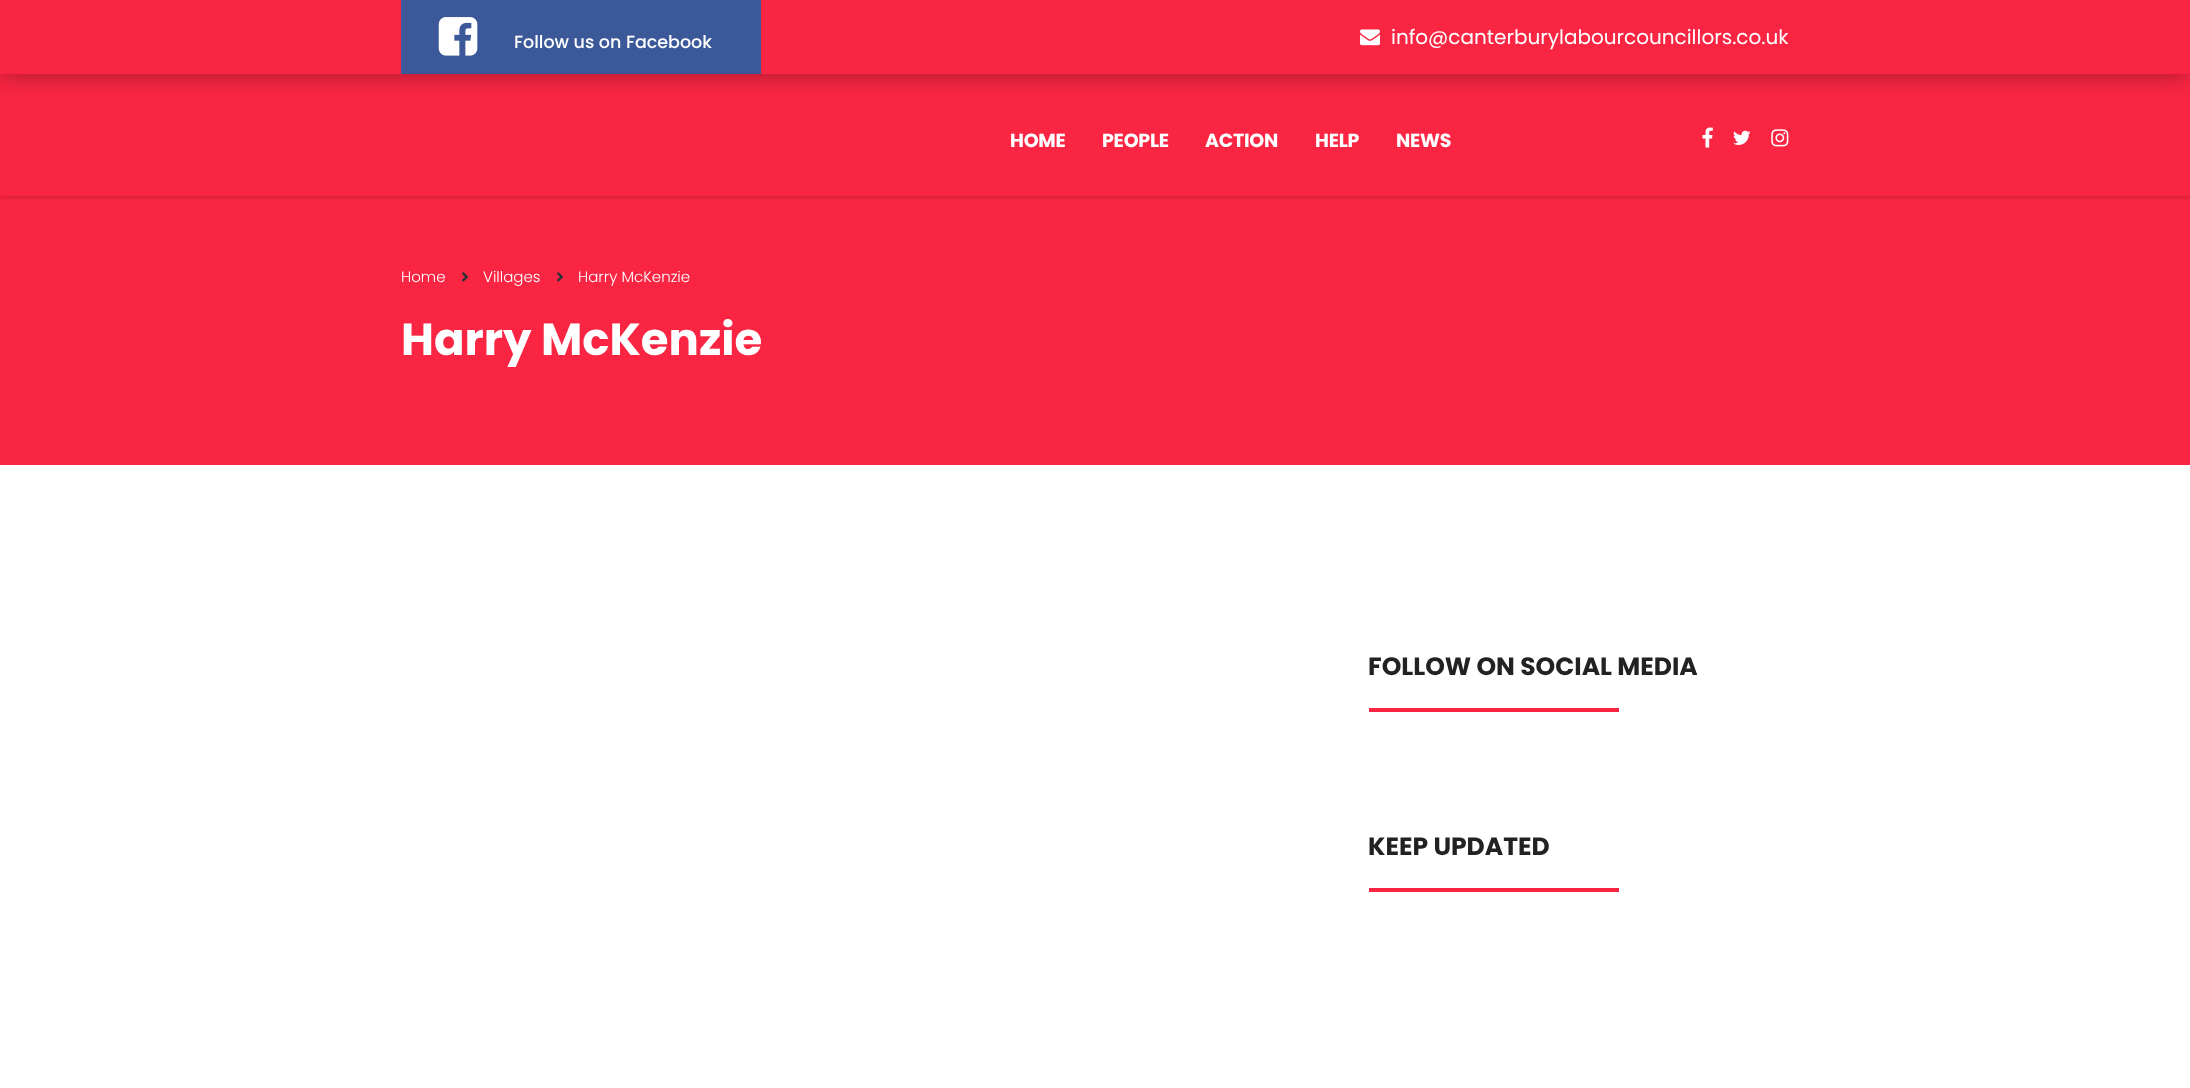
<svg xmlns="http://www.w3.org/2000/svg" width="2190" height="1088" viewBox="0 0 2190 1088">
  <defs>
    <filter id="blur1" x="-50%" y="-200%" width="200%" height="500%"><feGaussianBlur stdDeviation="2"/></filter>
    <filter id="blur2" x="-50%" y="-200%" width="200%" height="500%"><feGaussianBlur stdDeviation="12.5"/></filter>
  </defs>
  <rect width="100%" height="100%" fill="#ffffff"/>
  <rect x="0" y="196" width="2190" height="269" fill="#f92543"/>
  <rect x="0" y="1" width="2190" height="197" fill="#000000" fill-opacity="0.15" filter="url(#blur1)"/>
  <rect x="0" y="74" width="2190" height="122" fill="#f92543"/>
  <rect x="0" y="0" width="2190" height="74" fill="#000000" fill-opacity="0.35" filter="url(#blur2)"/>
  <rect x="0" y="0" width="2190" height="74" fill="#f92543"/>
  <rect x="401" y="0" width="360" height="74" fill="#3b5998"/>
  <image x="438" y="17" width="40" height="39" href="img1.png"/>
  <text x="514" y="48" font-family="Poppins" font-size="17.5" font-weight="500" fill="#ffffff">Follow us on Facebook</text>
  <image x="1360" y="29" width="20" height="17" href="img2.png"/>
  <text x="1391" y="44" font-family="Poppins" font-size="20" fill="#ffffff">info@canterburylabourcouncillors.co.uk</text>
  <text x="1010" y="147" font-family="Poppins" font-size="19" font-weight="bold" letter-spacing="-0.25" fill="#ffffff">HOME</text>
  <text x="1102" y="147" font-family="Poppins" font-size="19" font-weight="bold" letter-spacing="-0.25" fill="#ffffff">PEOPLE</text>
  <text x="1205" y="147" font-family="Poppins" font-size="19" font-weight="bold" letter-spacing="-0.25" fill="#ffffff">ACTION</text>
  <text x="1315" y="147" font-family="Poppins" font-size="19" font-weight="bold" letter-spacing="-0.25" fill="#ffffff">HELP</text>
  <text x="1396" y="147" font-family="Poppins" font-size="19" font-weight="bold" letter-spacing="-0.25" fill="#ffffff">NEWS</text>
  <image x="1702" y="127" width="11" height="21" href="img3.png"/>
  <image x="1733" y="130" width="18" height="15" href="img4.png"/>
  <image x="1771" y="129" width="18" height="18" href="img5.png"/>
  <text x="401" y="282" font-family="Poppins" font-size="15" font-weight="300" fill="#ffffff">Home</text>
  <image x="462" y="272" width="6" height="10" href="img6.png"/>
  <text x="483" y="282" font-family="Poppins" font-size="15" font-weight="300" fill="#ffffff">Villages</text>
  <image x="557" y="272" width="6" height="10" href="img6.png"/>
  <text x="578" y="282" font-family="Poppins" font-size="15" font-weight="300" fill="#ffffff">Harry McKenzie</text>
  <text x="401" y="355" font-family="Poppins" font-size="45" font-weight="bold" fill="#ffffff">Harry McKenzie</text>
  <text x="1368" y="675" font-family="Poppins" font-size="25" font-weight="bold" fill="#222222">FOLLOW ON SOCIAL MEDIA</text>
  <rect x="1369" y="708" width="250" height="4" fill="#f92543"/>
  <text x="1368" y="855" font-family="Poppins" font-size="25" font-weight="bold" fill="#222222">KEEP UPDATED</text>
  <rect x="1369" y="888" width="250" height="4" fill="#f92543"/>
</svg>
